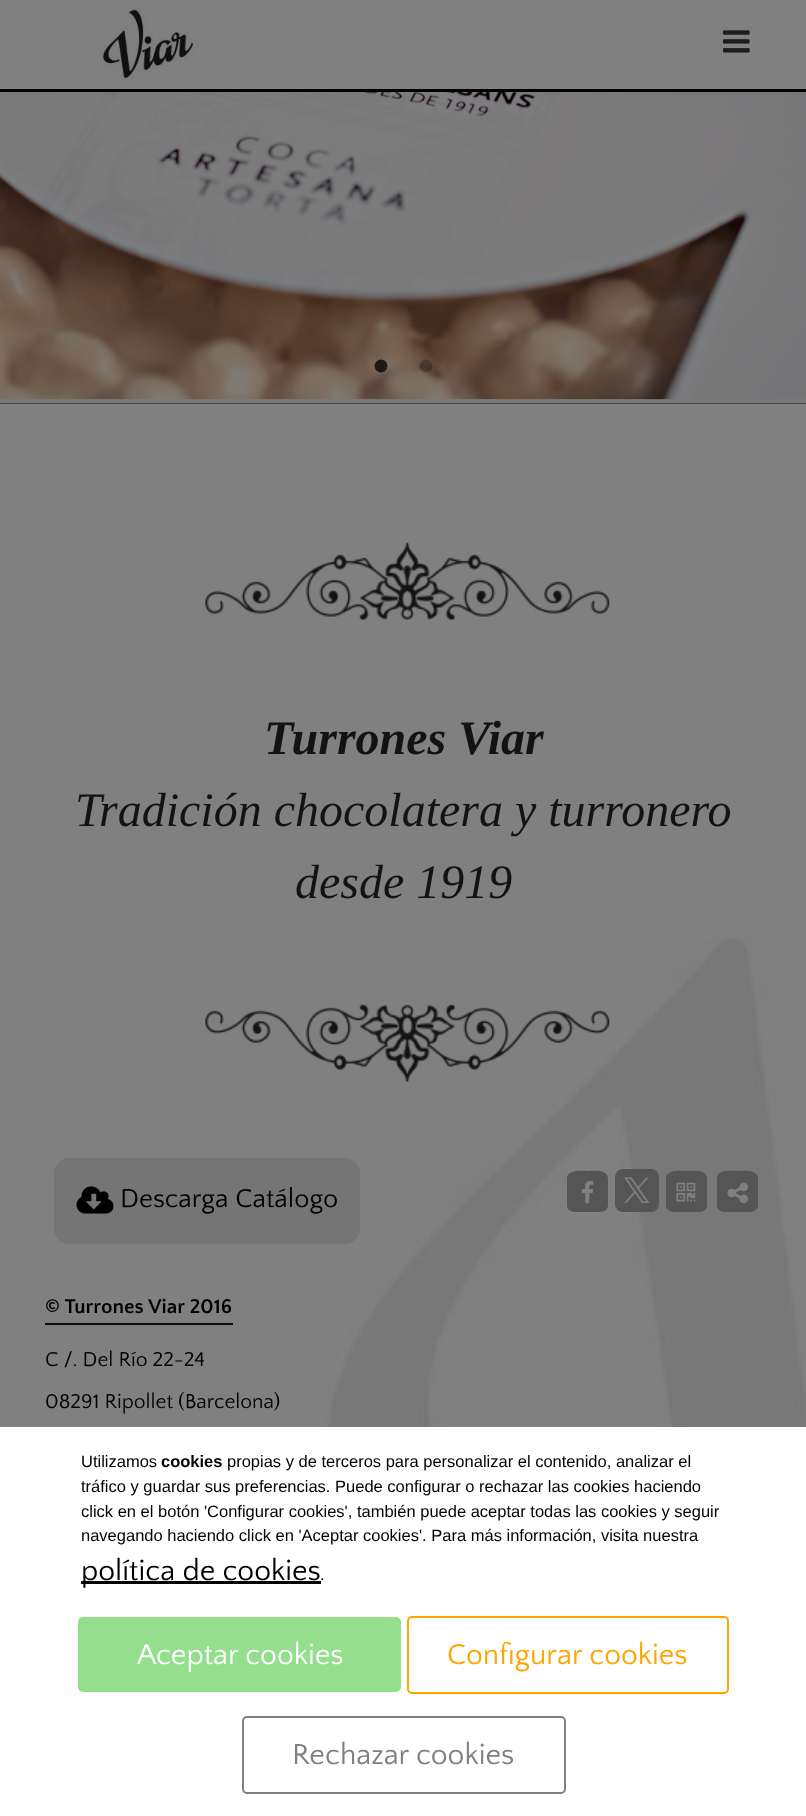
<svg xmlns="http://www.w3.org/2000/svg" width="806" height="1816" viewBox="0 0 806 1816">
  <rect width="100%" height="100%" fill="#808080"/>
  <image x="326" y="937" width="480" height="490" href="img1.png"/>
  <rect x="0" y="89" width="806" height="3" fill="#000000"/>
  <image x="99" y="7" width="96" height="72" href="img2.png"/>
  <image x="723" y="30" width="27" height="23" href="img3.png"/>
  <image x="0" y="92" width="806" height="312" href="img4.png"/>
  <image x="374" y="359" width="14" height="14" href="img5.png"/>
  <image x="419" y="359" width="14" height="14" href="img6.png"/>
  <image x="205" y="542" width="405" height="78" href="img7.png"/>
  <text x="264" y="754" font-family="Liberation Serif" font-size="48" font-weight="bold" font-style="italic" fill="#131313">Turrones Viar</text>
  <text x="75" y="826" font-family="Liberation Serif" font-size="48" font-style="italic" fill="#131313">Tradición chocolatera y turronero</text>
  <text x="295" y="898" font-family="Liberation Serif" font-size="48" font-style="italic" fill="#131313">desde 1919</text>
  <image x="205" y="1004" width="405" height="78" href="img8.png"/>
  <rect x="54" y="1158" width="306" height="86" rx="15" fill="#757575"/>
  <image x="76" y="1186" width="38" height="28" href="img9.png"/>
  <text x="120" y="1207" font-family="Quattrocento Sans" font-size="27" fill="#000000">Descarga Catálogo</text>
  <path d="M608 1179V1206C607 1212 601 1212 596 1212H579C574 1212 568 1212 567 1206V1179C567 1169 581 1171 588 1171C594 1171 608 1169 608 1179Z" fill="#555555"/>
  <image x="581" y="1181" width="13" height="23" href="img10.png"/>
  <rect x="615" y="1169" width="44" height="43" rx="8" fill="#555555"/>
  <image x="624" y="1177" width="26" height="26" href="img11.png"/>
  <path d="M707 1179V1206C706 1212 700 1212 695 1212H678C673 1212 667 1212 666 1206V1179C666 1169 680 1171 687 1171C693 1171 707 1169 707 1179Z" fill="#555555"/>
  <image x="676" y="1182" width="20" height="20" href="img12.png"/>
  <path d="M758 1179V1206C757 1212 751 1212 746 1212H729C724 1212 718 1212 717 1206V1179C717 1169 731 1171 738 1171C744 1171 758 1169 758 1179Z" fill="#555555"/>
  <image x="727" y="1182" width="21" height="22" href="img13.png"/>
  <rect x="45" y="1323" width="188" height="2" fill="#0e0b0c"/>
  <text x="45" y="1313" font-family="Quattrocento Sans" font-size="21" font-weight="bold" fill="#000000">© Turrones Viar 2016</text>
  <text x="45" y="1366" font-family="Quattrocento Sans" font-size="21" fill="#000000">C /. Del Río 22-24</text>
  <text x="45" y="1408" font-family="Quattrocento Sans" font-size="21" fill="#000000">08291 Ripollet (Barcelona)</text>
  <rect x="0" y="1427" width="806" height="389" fill="#ffffff"/>
  <text x="81" y="1467" font-family="Liberation Sans" font-size="16.5" fill="#000000">Utilizamos</text>
  <text x="161" y="1467" font-family="Liberation Sans" font-size="16.5" font-weight="bold" fill="#000000">cookies</text>
  <text x="227" y="1467" font-family="Liberation Sans" font-size="16.5" fill="#000000">propias y de terceros para personalizar el contenido, analizar el</text>
  <text x="81" y="1492" font-family="Liberation Sans" font-size="16.5" fill="#000000">tráfico y guardar sus preferencias. Puede configurar o rechazar las cookies haciendo</text>
  <text x="81" y="1517" font-family="Liberation Sans" font-size="16.5" fill="#000000">click en el botón 'Configurar cookies', también puede aceptar todas las cookies y seguir</text>
  <text x="81" y="1541" font-family="Liberation Sans" font-size="16.5" fill="#000000">navegando haciendo click en 'Aceptar cookies'. Para más información, visita nuestra</text>
  <rect x="81" y="1581" width="240" height="3" fill="#000000"/>
  <text x="81" y="1580" font-family="Quattrocento Sans" font-size="30" fill="#000000">política de cookies</text>
  <text x="320" y="1580" font-family="Liberation Sans" font-size="16.5" fill="#000000">.</text>
  <rect x="78" y="1617" width="323" height="75" rx="5" fill="#95de8e"/>
  <text x="137" y="1664" font-family="Quattrocento Sans" font-size="30" fill="#ffffff">Aceptar cookies</text>
  <rect x="408" y="1617" width="320" height="76" rx="4" fill="none" stroke="#ffa500" stroke-width="2"/>
  <text x="447" y="1664" font-family="Quattrocento Sans" font-size="30" fill="#ffa500">Configurar cookies</text>
  <rect x="243" y="1717" width="322" height="76" rx="4" fill="none" stroke="#808080" stroke-width="2"/>
  <text x="292" y="1764" font-family="Quattrocento Sans" font-size="30" fill="#808080">Rechazar cookies</text>
</svg>
